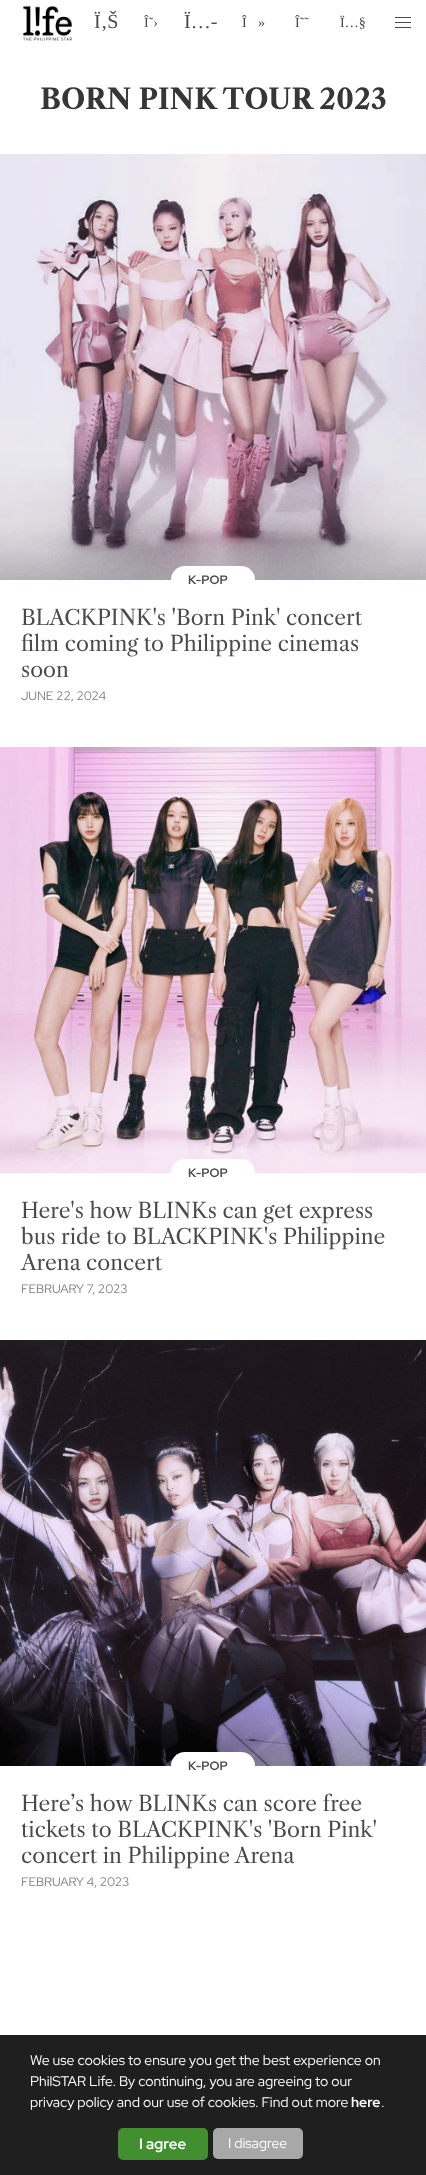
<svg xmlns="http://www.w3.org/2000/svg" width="426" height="2175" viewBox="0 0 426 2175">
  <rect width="100%" height="100%" fill="#ffffff"/>
  <image x="23" y="5" width="49" height="36" href="img1.png"/>
  <text x="94" y="28" font-family="Liberation Serif" font-size="20" fill="#4a4a4a">Ï‚Š</text>
  <text x="144" y="27" font-family="Liberation Serif" font-size="14" fill="#4a4a4a">Î˜›</text>
  <text x="184" y="28" font-family="Liberation Serif" font-size="20" fill="#4a4a4a">Ï…-</text>
  <text x="242" y="27" font-family="Liberation Serif" font-size="14" fill="#4a4a4a">Î</text>
  <text x="258" y="27" font-family="Liberation Serif" font-size="14" fill="#4a4a4a">»</text>
  <text x="295" y="27" font-family="Liberation Serif" font-size="14" fill="#4a4a4a">Î˜˜</text>
  <text x="340" y="27" font-family="Liberation Serif" font-size="14" fill="#4a4a4a">Ï…§</text>
  <rect x="395" y="17" width="16" height="1" fill="#4a4a4a"/>
  <rect x="395" y="22" width="16" height="1" fill="#4a4a4a"/>
  <rect x="395" y="27" width="16" height="1" fill="#4a4a4a"/>
  <text x="40" y="109" font-family="Libre Caslon Text" font-size="28" font-weight="bold" fill="#363636">BORN PINK TOUR 2023</text>
  <image x="0" y="154" width="426" height="426" href="img2.png"/>
  <rect x="171" y="566" width="84" height="28" rx="14" fill="#ffffff"/>
  <text x="188" y="584" font-family="Red Hat Display" font-size="12.25" font-weight="bold" fill="#4a4a4a">K-POP</text>
  <text x="21" y="625" font-family="Libre Caslon Text" font-size="21" fill="#4a4a4a">BLACKPINK's 'Born Pink' concert</text>
  <text x="21" y="651" font-family="Libre Caslon Text" font-size="21" fill="#4a4a4a">film coming to Philippine cinemas</text>
  <text x="21" y="677" font-family="Libre Caslon Text" font-size="21" fill="#4a4a4a">soon</text>
  <text x="21" y="700" font-family="Red Hat Display" font-size="12.25" fill="#808080">JUNE 22, 2024</text>
  <image x="0" y="747" width="426" height="426" href="img3.png"/>
  <rect x="171" y="1159" width="84" height="28" rx="14" fill="#ffffff"/>
  <text x="188" y="1177" font-family="Red Hat Display" font-size="12.25" font-weight="bold" fill="#4a4a4a">K-POP</text>
  <text x="21" y="1218" font-family="Libre Caslon Text" font-size="21" fill="#4a4a4a">Here's how BLINKs can get express</text>
  <text x="21" y="1244" font-family="Libre Caslon Text" font-size="21" fill="#4a4a4a">bus ride to BLACKPINK's Philippine</text>
  <text x="21" y="1270" font-family="Libre Caslon Text" font-size="21" fill="#4a4a4a">Arena concert</text>
  <text x="21" y="1293" font-family="Red Hat Display" font-size="12.25" fill="#808080">FEBRUARY 7, 2023</text>
  <image x="0" y="1340" width="426" height="426" href="img4.png"/>
  <rect x="171" y="1752" width="84" height="28" rx="14" fill="#ffffff"/>
  <text x="188" y="1770" font-family="Red Hat Display" font-size="12.25" font-weight="bold" fill="#4a4a4a">K-POP</text>
  <text x="21" y="1811" font-family="Libre Caslon Text" font-size="21" fill="#4a4a4a">Here’s how BLINKs can score free</text>
  <text x="21" y="1837" font-family="Libre Caslon Text" font-size="21" fill="#4a4a4a">tickets to BLACKPINK's 'Born Pink'</text>
  <text x="21" y="1863" font-family="Libre Caslon Text" font-size="21" fill="#4a4a4a">concert in Philippine Arena</text>
  <text x="21" y="1886" font-family="Red Hat Display" font-size="12.25" fill="#808080">FEBRUARY 4, 2023</text>
  <rect x="0" y="2035" width="426" height="140" fill="#1f1f1f"/>
  <text x="30" y="2065" font-family="Red Hat Display" font-size="14" fill="#ffffff">We use cookies to ensure you get the best experience on</text>
  <text x="30" y="2086" font-family="Red Hat Display" font-size="14" fill="#ffffff">PhilSTAR Life. By continuing, you are agreeing to our</text>
  <text x="30" y="2107" font-family="Red Hat Display" font-size="14" fill="#ffffff">privacy policy and our use of cookies. Find out more</text>
  <text x="351" y="2107" font-family="Red Hat Display" font-size="14" font-weight="bold" fill="#ffffff">here</text>
  <text x="381" y="2107" font-family="Red Hat Display" font-size="14" fill="#ffffff">.</text>
  <rect x="118" y="2128" width="90" height="32" rx="5" fill="#428f30"/>
  <text x="139" y="2149" font-family="Red Hat Display" font-size="15" font-weight="bold" fill="#ffffff">I agree</text>
  <rect x="213" y="2128" width="90" height="31" rx="5" fill="#a8a8a8"/>
  <text x="228" y="2148" font-family="Red Hat Display" font-size="14" fill="#ffffff">I disagree</text>
</svg>
